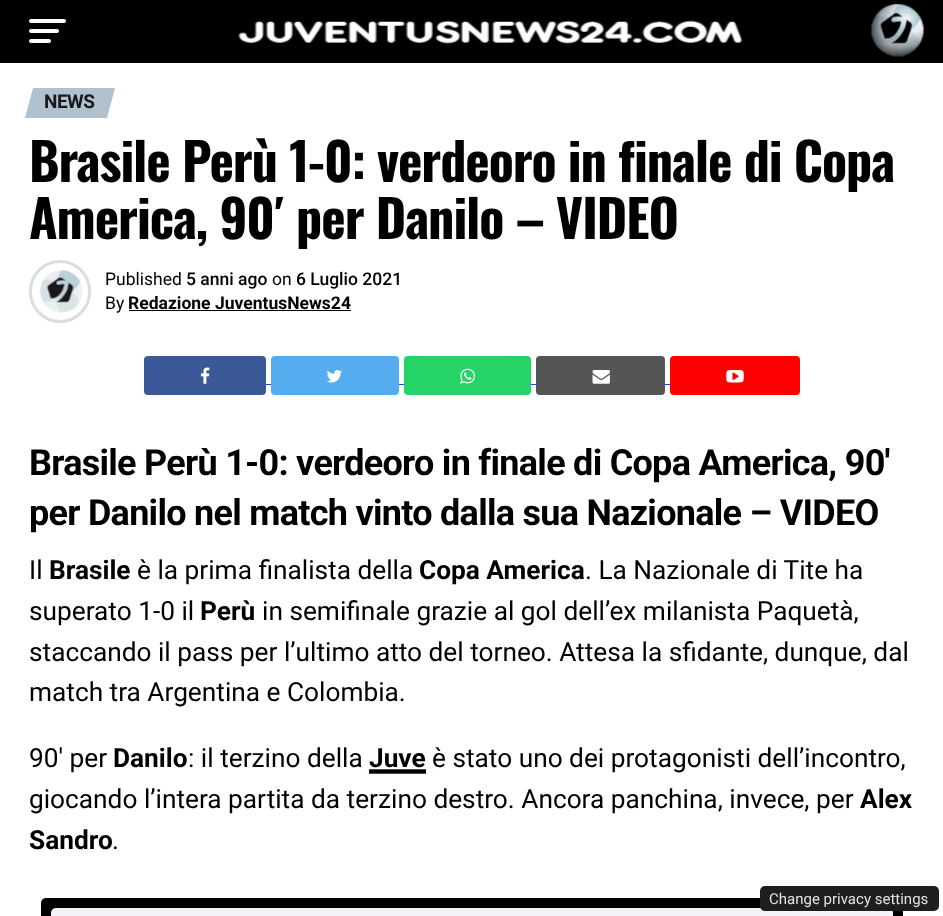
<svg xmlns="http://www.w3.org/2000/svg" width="943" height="916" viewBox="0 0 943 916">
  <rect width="100%" height="100%" fill="#ffffff"/>
  <rect x="0" y="0" width="943" height="63" fill="#000000"/>
  <rect x="29" y="19" width="37" height="4" rx="2" fill="#ffffff"/>
  <rect x="29" y="29" width="30" height="4" rx="2" fill="#ffffff"/>
  <rect x="29" y="39" width="22" height="4" rx="2" fill="#ffffff"/>
  <image x="238" y="20" width="505" height="24" href="img1.png"/>
  <image x="870" y="4" width="54" height="53" href="img2.png"/>
  <path d="M33 88H115L107 118H25Z" fill="#b0c2ce"/>
  <text x="44" y="108" font-family="Roboto" font-size="19" font-weight="bold" letter-spacing="-0.5" fill="#19181c">NEWS</text>
  <text x="29" y="182" font-family="Oswald" font-size="52" font-weight="bold" letter-spacing="-1.05" fill="#000000">Brasile Perù 1-0: verdeoro in finale di Copa</text>
  <text x="29" y="239" font-family="Oswald" font-size="52" font-weight="bold" letter-spacing="-1.05" fill="#000000">America, 90′ per Danilo – VIDEO</text>
  <rect x="30.5" y="261.5" width="59" height="60" rx="29.5" fill="none" stroke="#dddddd" stroke-width="3"/>
  <image x="39" y="269" width="44" height="44" href="img3.png"/>
  <text x="105" y="285" font-family="Roboto" font-size="17.5" fill="#000000">Published</text>
  <text x="186" y="285" font-family="Roboto" font-size="17.5" font-weight="500" fill="#000000">5 anni ago</text>
  <text x="272" y="285" font-family="Roboto" font-size="17.5" fill="#000000">on</text>
  <text x="296" y="285" font-family="Roboto" font-size="17.5" font-weight="500" fill="#000000">6 Luglio 2021</text>
  <text x="105" y="309" font-family="Roboto" font-size="17.5" fill="#000000">By</text>
  <text x="128" y="309" font-family="Roboto" font-size="17.5" font-weight="bold" fill="#000000">Redazione JuventusNews24</text>
  <rect x="129" y="310" width="222" height="1" fill="#000000"/>
  <rect x="144" y="356" width="122" height="39" rx="4" fill="#3b5998"/>
  <image x="200" y="367" width="10" height="17" href="img4.png"/>
  <rect x="266" y="384" width="5" height="1" fill="#2545e4"/>
  <rect x="271" y="356" width="128" height="39" rx="4" fill="#55acee"/>
  <image x="326" y="370" width="16" height="13" href="img5.png"/>
  <rect x="399" y="384" width="5" height="1" fill="#2545e4"/>
  <rect x="404" y="356" width="127" height="39" rx="4" fill="#25d366"/>
  <image x="460" y="368" width="15" height="16" href="img6.png"/>
  <rect x="531" y="384" width="5" height="1" fill="#2545e4"/>
  <rect x="536" y="356" width="129" height="39" rx="4" fill="#555555"/>
  <image x="592" y="370" width="18" height="14" href="img7.png"/>
  <rect x="665" y="384" width="5" height="1" fill="#2545e4"/>
  <rect x="670" y="356" width="130" height="39" rx="4" fill="#ff0000"/>
  <image x="726" y="370" width="18" height="13" href="img8.png"/>
  <text x="29" y="475" font-family="Roboto" font-size="36" font-weight="bold" letter-spacing="-0.72" fill="#000000">Brasile Perù 1-0: verdeoro in finale di Copa America, 90′</text>
  <text x="29" y="525" font-family="Roboto" font-size="36" font-weight="bold" letter-spacing="-0.72" fill="#000000">per Danilo nel match vinto dalla sua Nazionale – VIDEO</text>
  <text x="29" y="579" font-family="Roboto" font-size="26.25" fill="#000000">Il</text>
  <text x="49" y="579" font-family="Roboto" font-size="26.25" font-weight="bold" fill="#000000">Brasile</text>
  <text x="137" y="579" font-family="Roboto" font-size="26.25" fill="#000000">è la prima finalista della</text>
  <text x="419" y="579" font-family="Roboto" font-size="26.25" font-weight="bold" fill="#000000">Copa America</text>
  <text x="585" y="579" font-family="Roboto" font-size="26.25" fill="#000000">. La Nazionale di Tite ha</text>
  <text x="29" y="620" font-family="Roboto" font-size="26.25" fill="#000000">superato 1-0 il</text>
  <text x="200" y="620" font-family="Roboto" font-size="26.25" font-weight="bold" fill="#000000">Perù</text>
  <text x="262" y="620" font-family="Roboto" font-size="26.25" fill="#000000">in semifinale grazie al gol dell’ex milanista Paquetà,</text>
  <text x="29" y="661" font-family="Roboto" font-size="26.25" fill="#000000">staccando il pass per l’ultimo atto del torneo. Attesa la sfidante, dunque, dal</text>
  <text x="29" y="701" font-family="Roboto" font-size="26.25" fill="#000000">match tra Argentina e Colombia.</text>
  <text x="29" y="767" font-family="Roboto" font-size="26.25" fill="#000000">90′ per</text>
  <text x="113" y="767" font-family="Roboto" font-size="26.25" font-weight="bold" fill="#000000">Danilo</text>
  <text x="188" y="767" font-family="Roboto" font-size="26.25" fill="#000000">: il terzino della</text>
  <text x="369" y="767" font-family="Roboto" font-size="26.25" font-weight="bold" fill="#000000">Juve</text>
  <rect x="369" y="769" width="57" height="5" fill="#ff0000"/>
  <rect x="369" y="770" width="57" height="3" fill="#000000"/>
  <text x="432" y="767" font-family="Roboto" font-size="26.25" fill="#000000">è stato uno dei protagonisti dell’incontro,</text>
  <text x="29" y="808" font-family="Roboto" font-size="26.25" fill="#000000">giocando l’intera partita da terzino destro. Ancora panchina, invece, per</text>
  <text x="860" y="808" font-family="Roboto" font-size="26.25" font-weight="bold" fill="#000000">Alex</text>
  <text x="29" y="849" font-family="Roboto" font-size="26.25" font-weight="bold" fill="#000000">Sandro</text>
  <text x="112" y="849" font-family="Roboto" font-size="26.25" fill="#000000">.</text>
  <rect x="41" y="898" width="862" height="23" rx="5" fill="#000000"/>
  <rect x="51" y="908" width="842" height="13" rx="5" fill="#f3f4f8"/>
  <rect x="760" y="886" width="179" height="25" rx="5" fill="#1e1e1e"/>
  <text x="769" y="904" font-family="Roboto" font-size="15" fill="#e3e1e1">Change privacy settings</text>
</svg>
